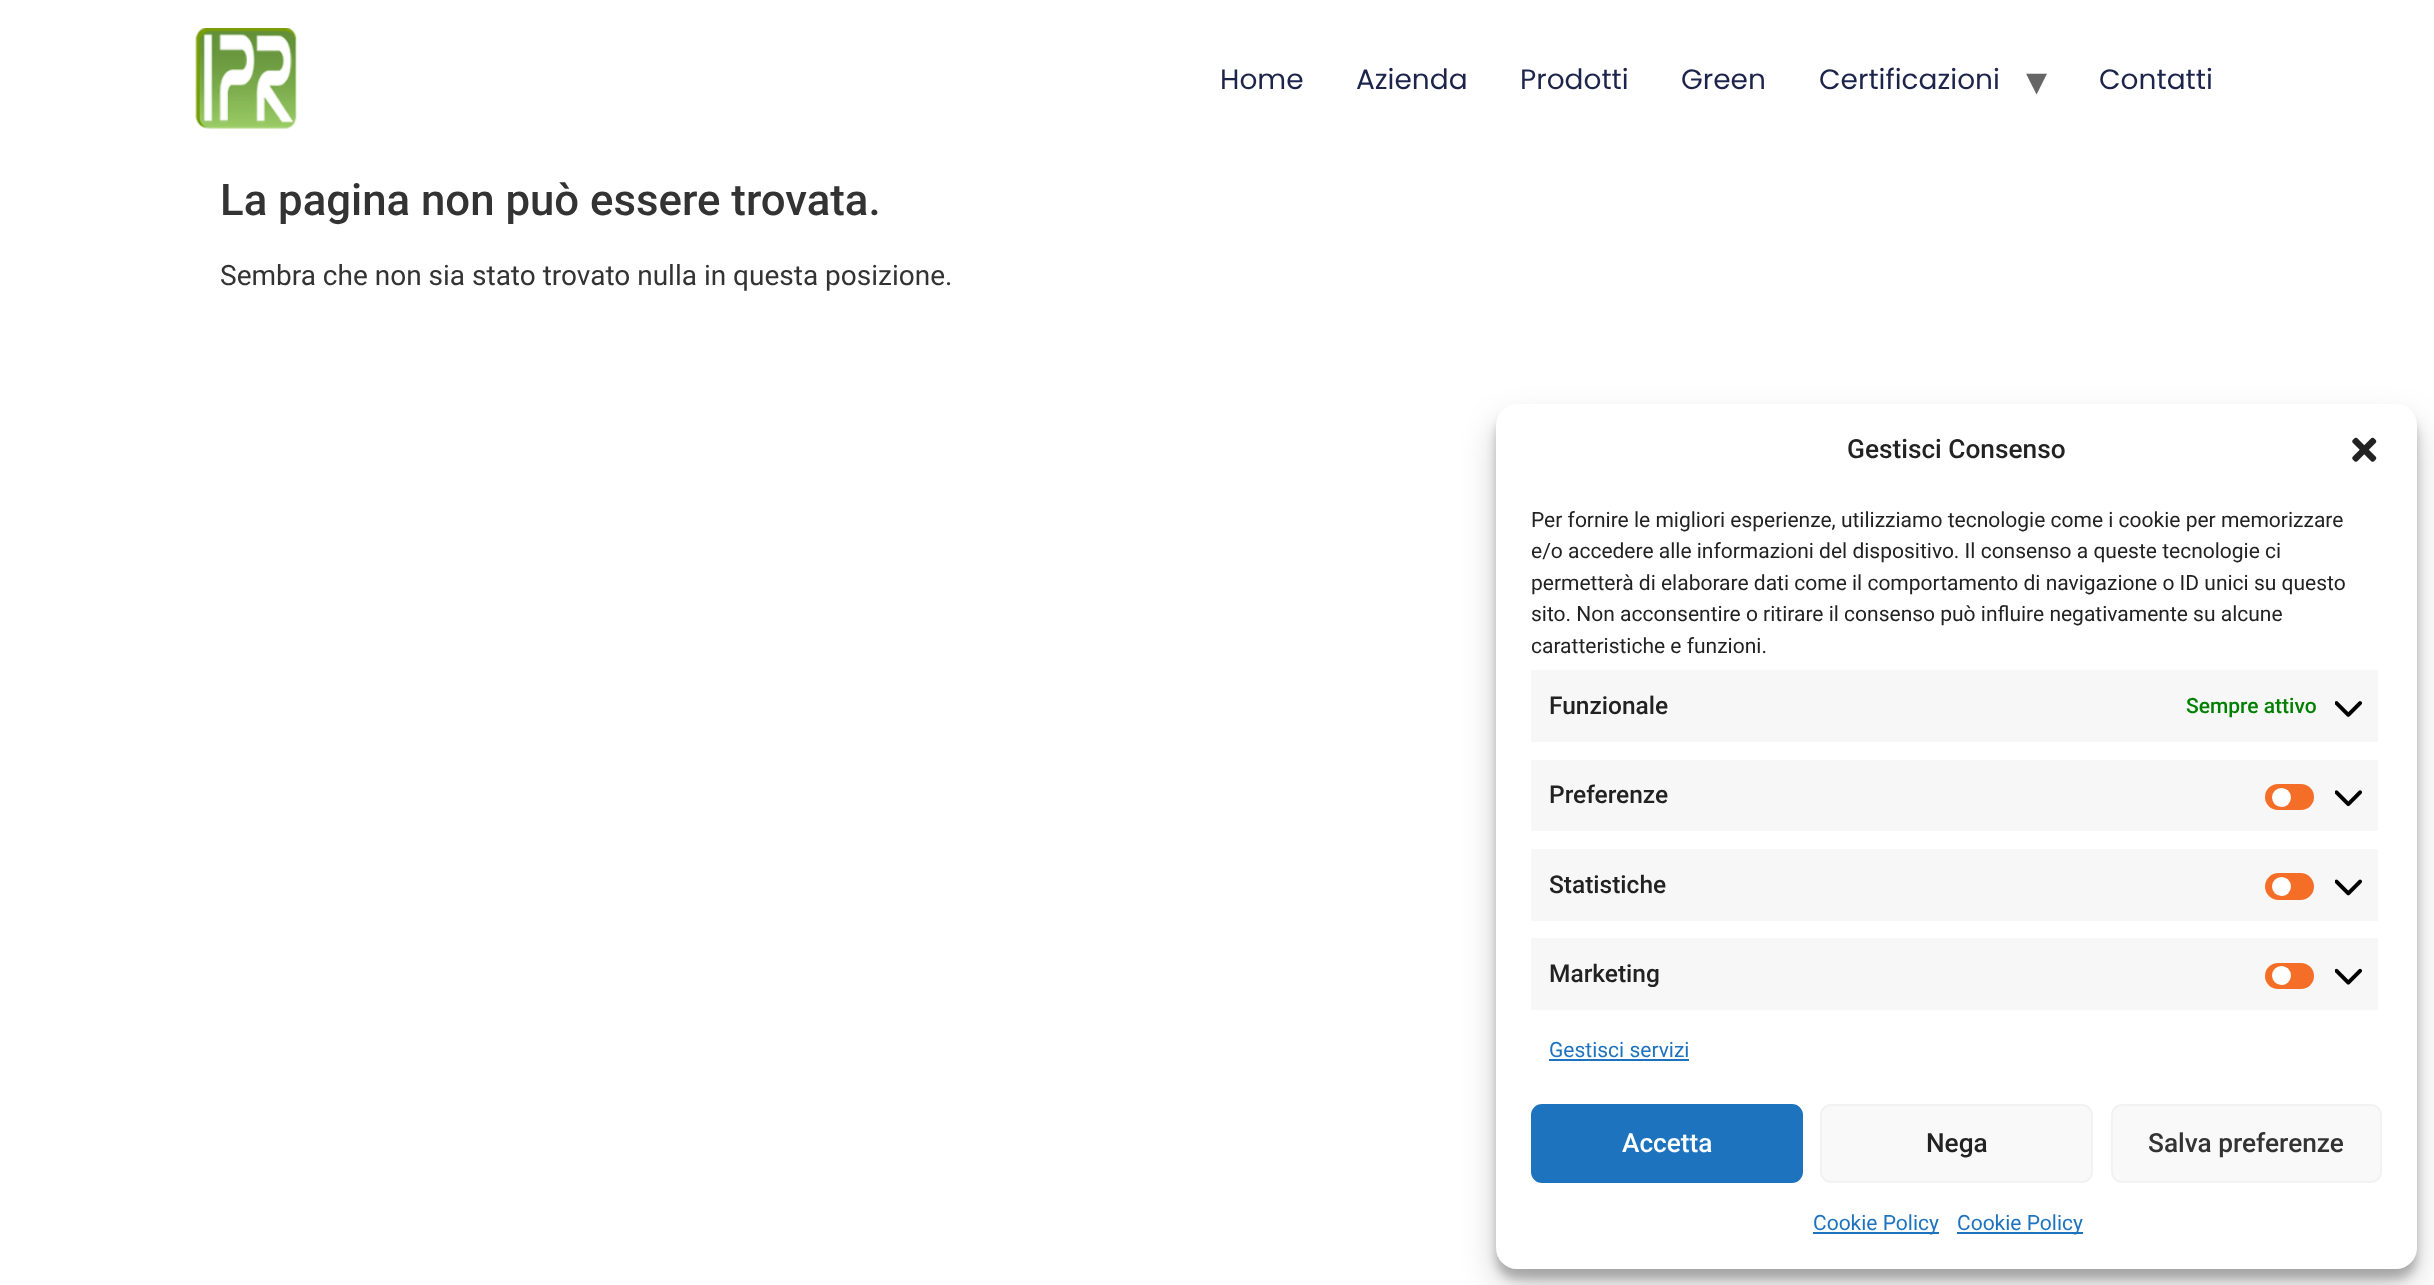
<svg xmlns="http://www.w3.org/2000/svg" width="2434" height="1285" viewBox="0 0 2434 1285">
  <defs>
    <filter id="blur1" x="-50%" y="-200%" width="200%" height="500%"><feGaussianBlur stdDeviation="5"/></filter>
    <filter id="blur2" x="-50%" y="-200%" width="200%" height="500%"><feGaussianBlur stdDeviation="17.5"/></filter>
  </defs>
  <rect width="100%" height="100%" fill="#ffffff"/>
  <image x="195" y="28" width="103" height="101" href="img1.png"/>
  <text x="1220" y="89" font-family="Poppins" font-size="28" fill="#1c244b">Home</text>
  <text x="1356" y="89" font-family="Poppins" font-size="28" fill="#1c244b">Azienda</text>
  <text x="1520" y="89" font-family="Poppins" font-size="28" fill="#1c244b">Prodotti</text>
  <text x="1681" y="89" font-family="Poppins" font-size="28" fill="#1c244b">Green</text>
  <text x="1819" y="89" font-family="Poppins" font-size="28" fill="#1c244b">Certificazioni</text>
  <text x="2026" y="95" font-family="DejaVu Sans" font-size="42" fill="#666666">▾</text>
  <text x="2099" y="89" font-family="Poppins" font-size="28" fill="#1c244b">Contatti</text>
  <text x="220" y="215" font-family="Roboto" font-size="43.75" font-weight="500" fill="#333333">La pagina non può essere trovata.</text>
  <text x="220" y="285" font-family="Roboto" font-size="28" fill="#333333">Sembra che non sia stato trovato nulla in questa posizione.</text>
  <rect x="1496" y="415" width="921" height="864" rx="21" fill="#000000" fill-opacity="0.23" filter="url(#blur1)"/>
  <rect x="1496" y="422" width="921" height="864" rx="21" fill="#000000" fill-opacity="0.19" filter="url(#blur2)"/>
  <rect x="1496" y="404" width="921" height="865" rx="21" fill="#ffffff"/>
  <text x="1847" y="458" font-family="Roboto" font-size="26.25" font-weight="500" fill="#222222">Gestisci Consenso</text>
  <image x="2352" y="437" width="25" height="25" href="img2.png"/>
  <text x="1531" y="527" font-family="Roboto" font-size="21" fill="#222222">Per fornire le migliori esperienze, utilizziamo tecnologie come i cookie per memorizzare</text>
  <text x="1531" y="558" font-family="Roboto" font-size="21" fill="#222222">e/o accedere alle informazioni del dispositivo. Il consenso a queste tecnologie ci</text>
  <text x="1531" y="590" font-family="Roboto" font-size="21" fill="#222222">permetterà di elaborare dati come il comportamento di navigazione o ID unici su questo</text>
  <text x="1531" y="621" font-family="Roboto" font-size="21" fill="#222222">sito. Non acconsentire o ritirare il consenso può influire negativamente su alcune</text>
  <text x="1531" y="653" font-family="Roboto" font-size="21" fill="#222222">caratteristiche e funzioni.</text>
  <rect x="1531" y="670" width="847" height="72" fill="#f7f7f7"/>
  <text x="1549" y="714" font-family="Roboto" font-size="24.5" font-weight="500" fill="#222222">Funzionale</text>
  <text x="2186" y="713" font-family="Roboto" font-size="21" font-weight="500" fill="#008000">Sempre attivo</text>
  <image x="2335" y="701" width="27" height="16" href="img3.png"/>
  <rect x="1531" y="760" width="847" height="71" fill="#f7f7f7"/>
  <text x="1549" y="803" font-family="Roboto" font-size="24.5" font-weight="500" fill="#222222">Preferenze</text>
  <rect x="2265" y="784" width="49" height="26" rx="13" fill="#f56e28"/>
  <circle cx="2281.5" cy="797.5" r="9.5" fill="#ffffff"/>
  <image x="2335" y="790" width="27" height="17" href="img4.png"/>
  <rect x="1531" y="849" width="847" height="72" fill="#f7f7f7"/>
  <text x="1549" y="893" font-family="Roboto" font-size="24.5" font-weight="500" fill="#222222">Statistiche</text>
  <rect x="2265" y="873" width="49" height="27" rx="13.5" fill="#f56e28"/>
  <circle cx="2281.5" cy="886.5" r="9.5" fill="#ffffff"/>
  <image x="2335" y="879" width="27" height="17" href="img5.png"/>
  <rect x="1531" y="938" width="847" height="72" fill="#f7f7f7"/>
  <text x="1549" y="982" font-family="Roboto" font-size="24.5" font-weight="500" fill="#222222">Marketing</text>
  <rect x="2265" y="963" width="49" height="26" rx="13" fill="#f56e28"/>
  <circle cx="2281.5" cy="975.5" r="9.5" fill="#ffffff"/>
  <image x="2335" y="968" width="27" height="17" href="img6.png"/>
  <text x="1549" y="1057" font-family="Roboto" font-size="21" fill="#1e73be">Gestisci servizi</text>
  <rect x="1549" y="1059" width="140" height="2" fill="#1e73be"/>
  <rect x="1532" y="1105" width="270" height="77" rx="10" fill="#1e73be" stroke="#1e73be" stroke-width="2"/>
  <text x="1622" y="1152" font-family="Roboto" font-size="26.25" font-weight="500" fill="#ffffff">Accetta</text>
  <rect x="1821" y="1105" width="271" height="77" rx="10" fill="#f9f9f9" stroke="#f2f2f2" stroke-width="2"/>
  <text x="1926" y="1152" font-family="Roboto" font-size="26.25" font-weight="500" fill="#222222">Nega</text>
  <rect x="2112" y="1105" width="269" height="77" rx="10" fill="#f9f9f9" stroke="#f2f2f2" stroke-width="2"/>
  <text x="2148" y="1152" font-family="Roboto" font-size="26.25" font-weight="500" fill="#333333">Salva preferenze</text>
  <rect x="1813" y="1232" width="126" height="2" fill="#1e73be"/>
  <text x="1813" y="1230" font-family="Roboto" font-size="21" fill="#1e73be">Cookie Policy</text>
  <rect x="1957" y="1232" width="126" height="2" fill="#1e73be"/>
  <text x="1957" y="1230" font-family="Roboto" font-size="21" fill="#1e73be">Cookie Policy</text>
</svg>
